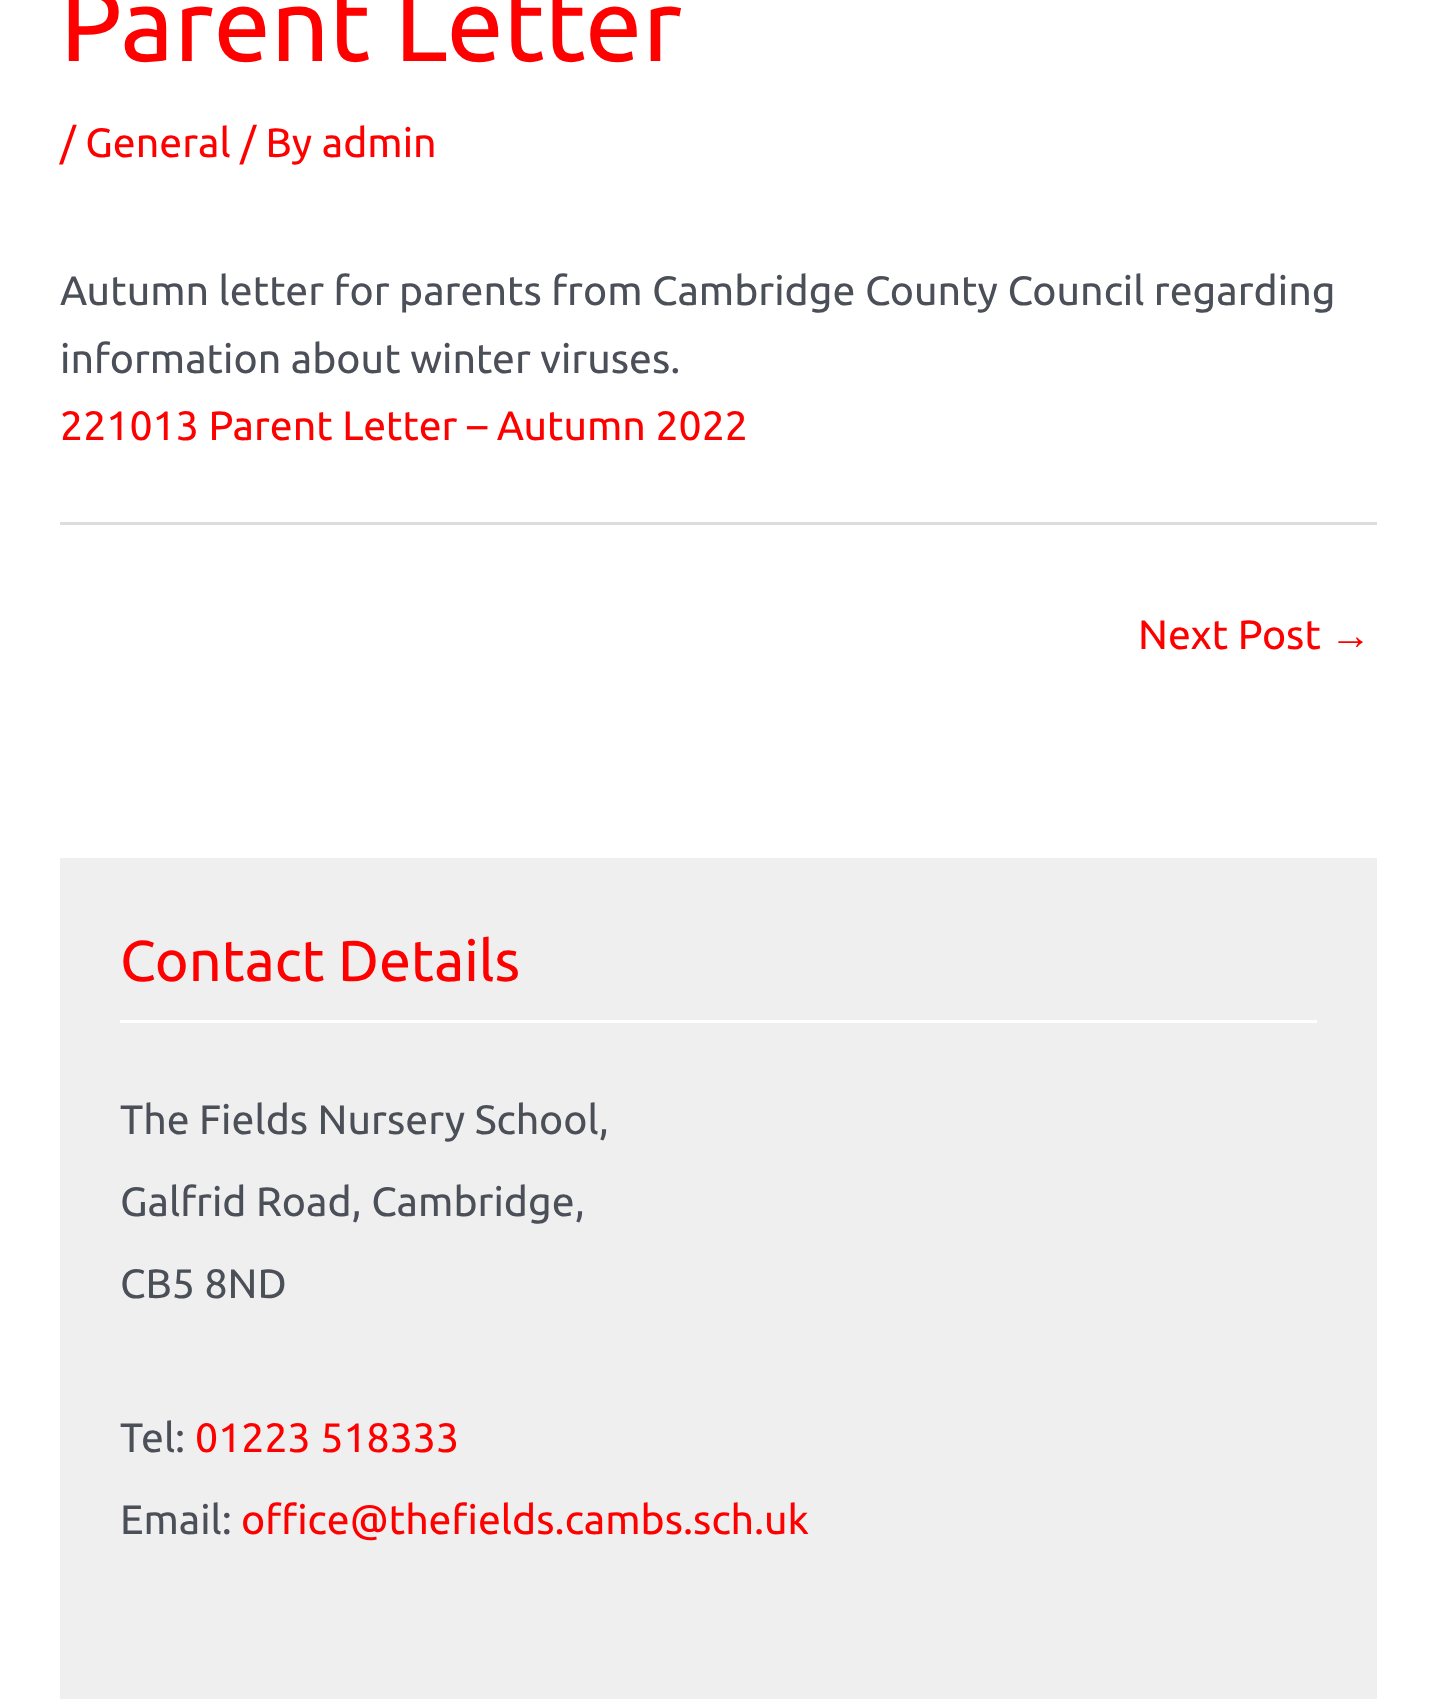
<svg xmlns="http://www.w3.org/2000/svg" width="1435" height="1699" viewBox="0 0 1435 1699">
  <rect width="100%" height="100%" fill="#ffffff"/>
  <text x="60" y="61" font-family="Ubuntu" font-size="102.5" fill="#ff0000">Parent Letter</text>
  <text x="60" y="157" font-family="Ubuntu" font-size="41.05" fill="#ff0000">/ General / By admin</text>
  <text x="60" y="305" font-family="Ubuntu" font-size="41.05" fill="#4b4f58">Autumn letter for parents from Cambridge County Council regarding</text>
  <text x="60" y="373" font-family="Ubuntu" font-size="41.05" fill="#4b4f58">information about winter viruses.</text>
  <text x="60" y="440" font-family="Ubuntu" font-size="41.05" fill="#ff0000">221013 Parent Letter – Autumn 2022</text>
  <rect x="60" y="522" width="1317" height="3" fill="#dddddd"/>
  <text x="1138" y="649" font-family="Ubuntu" font-size="41.05" fill="#ff0000">Next Post</text>
  <text x="1330" y="649" font-family="Liberation Sans" font-size="41.05" fill="#ff0000">→</text>
  <rect x="60" y="858" width="1317" height="841" fill="#efefef"/>
  <rect x="120" y="1020" width="1197" height="3" fill="#ffffff"/>
  <text x="120" y="981" font-family="Ubuntu" font-size="57.5" fill="#ff0000">Contact Details</text>
  <text x="120" y="1134" font-family="Ubuntu" font-size="41.05" fill="#4b4f58">The Fields Nursery School,</text>
  <text x="120" y="1216" font-family="Ubuntu" font-size="41.05" fill="#4b4f58">Galfrid Road, Cambridge,</text>
  <text x="120" y="1298" font-family="Ubuntu" font-size="41.05" fill="#4b4f58">CB5 8ND</text>
  <text x="120" y="1452" font-family="Ubuntu" font-size="41.05" fill="#4b4f58">Tel:</text>
  <text x="195" y="1452" font-family="Ubuntu" font-size="41.05" fill="#ff0000">01223 518333</text>
  <text x="120" y="1534" font-family="Ubuntu" font-size="41.05" fill="#4b4f58">Email:</text>
  <text x="241" y="1534" font-family="Ubuntu" font-size="41.05" fill="#ff0000">office@thefields.cambs.sch.uk</text>
</svg>
